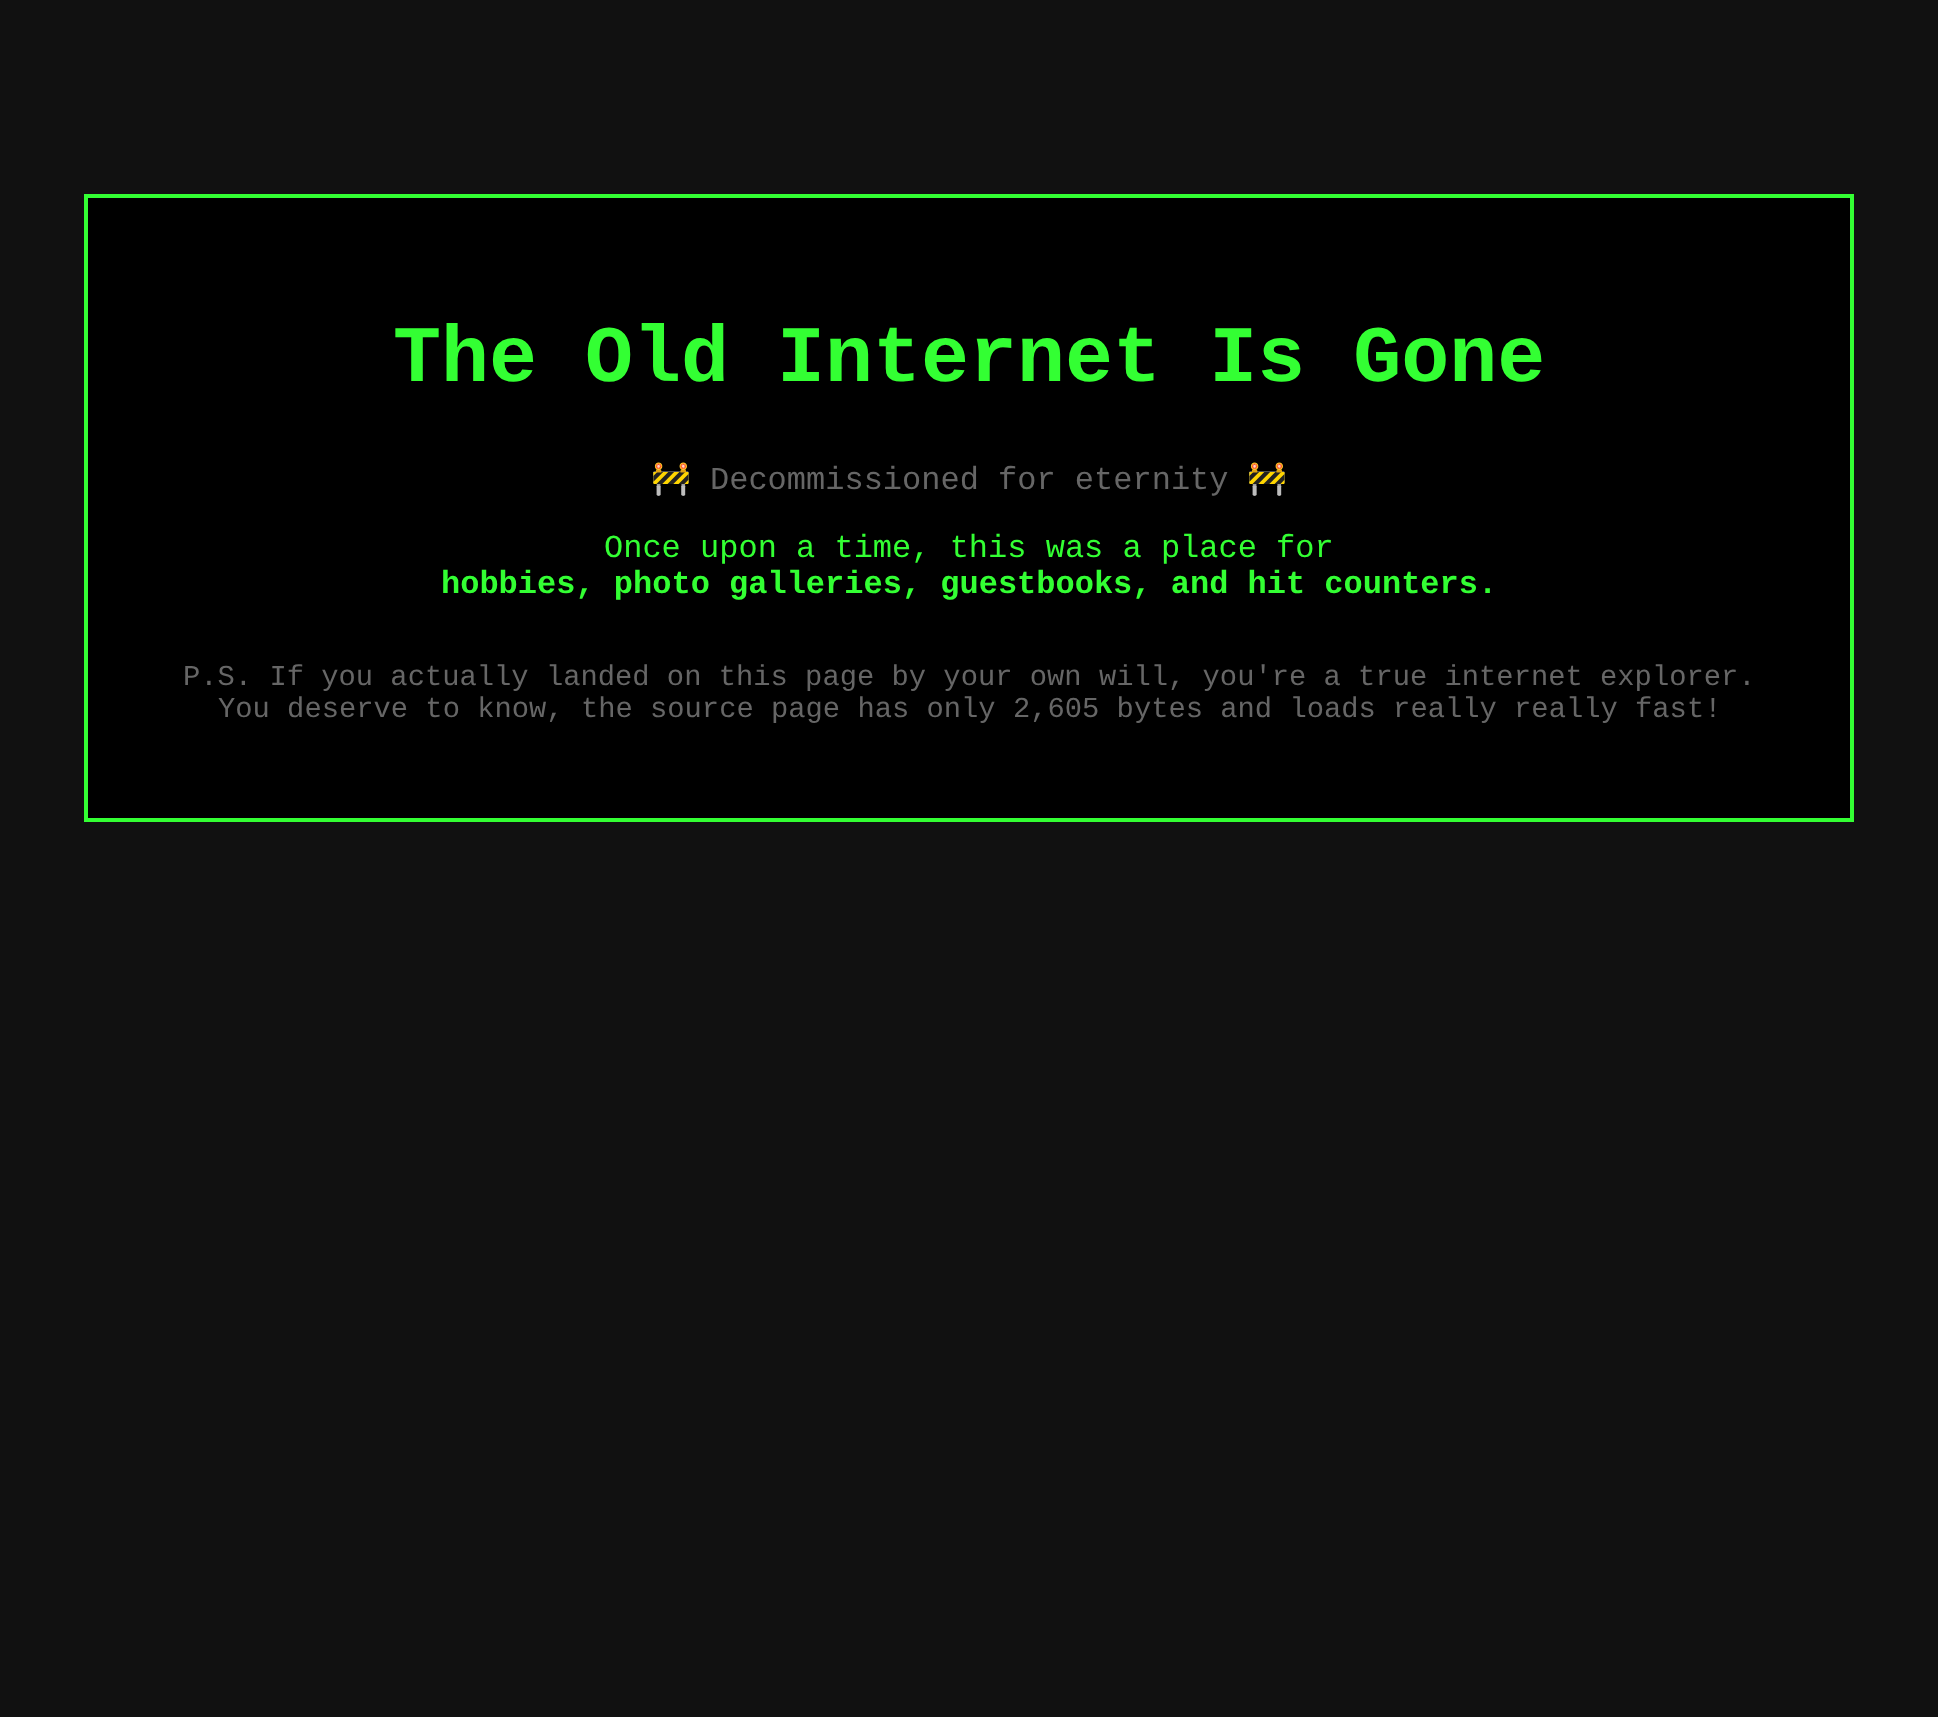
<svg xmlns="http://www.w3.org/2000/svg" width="1938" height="1717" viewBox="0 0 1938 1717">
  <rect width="100%" height="100%" fill="#111111"/>
  <rect x="86" y="196" width="1766" height="624" fill="#000000" stroke="#33ff33" stroke-width="4"/>
  <text x="393" y="381" font-family="Liberation Mono" font-size="80" font-weight="bold" fill="#33ff33">The Old Internet Is Gone</text>
  <text x="651" y="489" font-family="Noto Color Emoji" font-size="32" fill="#666666">🚧</text>
  <text x="710" y="489" font-family="Liberation Mono" font-size="32" fill="#666666">Decommissioned for eternity</text>
  <text x="1247" y="489" font-family="Noto Color Emoji" font-size="32" fill="#666666">🚧</text>
  <text x="604" y="557" font-family="Liberation Mono" font-size="32" fill="#33ff33">Once upon a time, this was a place for</text>
  <text x="441" y="593" font-family="Liberation Mono" font-size="32" font-weight="bold" fill="#33ff33">hobbies, photo galleries, guestbooks, and hit counters.</text>
  <text x="183" y="685" font-family="Liberation Mono" font-size="28.8" fill="#666666">P.S. If you actually landed on this page by your own will, you're a true internet explorer.</text>
  <text x="218" y="717" font-family="Liberation Mono" font-size="28.8" fill="#666666">You deserve to know, the source page has only 2,605 bytes and loads really really fast!</text>
</svg>
